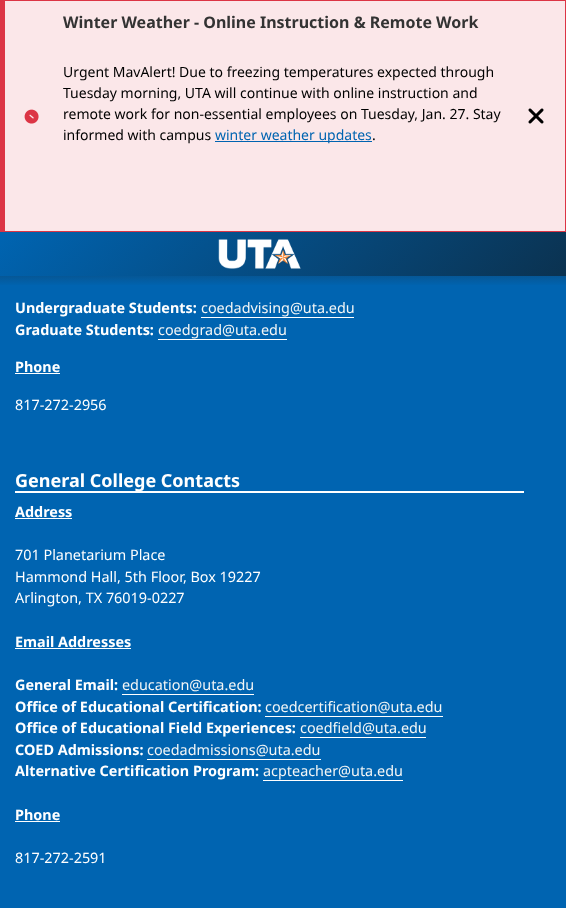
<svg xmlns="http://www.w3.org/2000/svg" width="566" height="908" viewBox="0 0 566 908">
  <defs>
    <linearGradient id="g1" gradientUnits="userSpaceOnUse" x1="130" y1="102" x2="436" y2="407"><stop offset="0" stop-color="#0064b1"/><stop offset="1" stop-color="#0b3250"/></linearGradient>
    <linearGradient id="g2" gradientUnits="userSpaceOnUse" x1="283" y1="232" x2="283" y2="286"><stop offset="0" stop-color="#1f1f1f"/><stop offset="1" stop-color="#1f1f1f" stop-opacity="0"/></linearGradient>
  </defs>
  <rect width="100%" height="100%" fill="#0064b1"/>
  <rect x="5" y="1" width="560" height="230" fill="#fbe7e9"/>
  <rect x="0" y="0" width="566" height="1" fill="#dc3545"/>
  <rect x="565" y="0" width="1" height="232" fill="#dc3545"/>
  <rect x="0" y="231" width="566" height="1" fill="#dc3545"/>
  <rect x="0" y="0" width="5" height="232" fill="#dc3545"/>
  <text x="63" y="28" font-family="Noto Sans" font-size="16" font-weight="bold" fill="#333333">Winter Weather - Online Instruction &amp; Remote Work</text>
  <image x="24" y="109" width="15" height="15" href="img1.png"/>
  <text x="63" y="77" font-family="Noto Sans" font-size="14" fill="#000000">Urgent MavAlert! Due to freezing temperatures expected through</text>
  <text x="63" y="98" font-family="Noto Sans" font-size="14" fill="#000000">Tuesday morning, UTA will continue with online instruction and</text>
  <text x="63" y="119" font-family="Noto Sans" font-size="14" fill="#000000">remote work for non-essential employees on Tuesday, Jan. 27. Stay</text>
  <text x="63" y="140" font-family="Noto Sans" font-size="14" fill="#000000">informed with campus</text>
  <rect x="215" y="141" width="157" height="1" fill="#0064b1"/>
  <text x="215" y="140" font-family="Noto Sans" font-size="14" fill="#0064b1">winter weather updates</text>
  <text x="372" y="140" font-family="Noto Sans" font-size="14" fill="#000000">.</text>
  <image x="528" y="108" width="16" height="16" href="img2.png"/>
  <rect x="0" y="232" width="566" height="44" fill="url(#g1)"/>
  <image x="218" y="239" width="83" height="30" href="img3.png"/>
  <rect x="0" y="276" width="566" height="9" fill="url(#g2)"/>
  <text x="15" y="313" font-family="Noto Sans" font-size="14.4" font-weight="bold" fill="#ffffff">Undergraduate Students:</text>
  <text x="201" y="313" font-family="Noto Sans" font-size="14.4" fill="#f3f6f6">coedadvising@uta.edu</text>
  <rect x="201" y="317" width="153" height="1" fill="#ffffff"/>
  <text x="15" y="335" font-family="Noto Sans" font-size="14.4" font-weight="bold" fill="#ffffff">Graduate Students:</text>
  <text x="158" y="335" font-family="Noto Sans" font-size="14.4" fill="#f3f6f6">coedgrad@uta.edu</text>
  <rect x="158" y="339" width="129" height="1" fill="#ffffff"/>
  <text x="15" y="372" font-family="Noto Sans" font-size="14.4" font-weight="bold" fill="#ffffff">Phone</text>
  <rect x="15" y="373" width="45" height="1" fill="#ffffff"/>
  <text x="15" y="410" font-family="Noto Sans" font-size="14.4" fill="#ffffff">817-272-2956</text>
  <rect x="15" y="491" width="509" height="2" fill="#ffffff"/>
  <text x="15" y="487" font-family="Noto Sans" font-size="18" font-weight="bold" fill="#ffffff">General College Contacts</text>
  <text x="15" y="517" font-family="Noto Sans" font-size="14.4" font-weight="bold" fill="#ffffff">Address</text>
  <rect x="15" y="518" width="57" height="1" fill="#ffffff"/>
  <text x="15" y="560" font-family="Noto Sans" font-size="14.4" fill="#ffffff">701 Planetarium Place</text>
  <text x="15" y="582" font-family="Noto Sans" font-size="14.4" fill="#ffffff">Hammond Hall, 5th Floor, Box 19227</text>
  <text x="15" y="603" font-family="Noto Sans" font-size="14.4" fill="#ffffff">Arlington, TX 76019-0227</text>
  <text x="15" y="647" font-family="Noto Sans" font-size="14.4" font-weight="bold" fill="#ffffff">Email Addresses</text>
  <rect x="15" y="648" width="116" height="1" fill="#ffffff"/>
  <text x="15" y="690" font-family="Noto Sans" font-size="14.4" font-weight="bold" fill="#ffffff">General Email:</text>
  <text x="122" y="690" font-family="Noto Sans" font-size="14.4" fill="#f3f6f6">education@uta.edu</text>
  <rect x="122" y="694" width="132" height="1" fill="#ffffff"/>
  <text x="15" y="712" font-family="Noto Sans" font-size="14.4" font-weight="bold" fill="#ffffff">Office of Educational Certification:</text>
  <text x="265" y="712" font-family="Noto Sans" font-size="14.4" fill="#f3f6f6">coedcertification@uta.edu</text>
  <rect x="265" y="716" width="178" height="1" fill="#ffffff"/>
  <text x="15" y="733" font-family="Noto Sans" font-size="14.4" font-weight="bold" fill="#ffffff">Office of Educational Field Experiences:</text>
  <text x="300" y="733" font-family="Noto Sans" font-size="14.4" fill="#f3f6f6">coedfield@uta.edu</text>
  <rect x="300" y="737" width="126" height="1" fill="#ffffff"/>
  <text x="15" y="755" font-family="Noto Sans" font-size="14.4" font-weight="bold" fill="#ffffff">COED Admissions:</text>
  <text x="147" y="755" font-family="Noto Sans" font-size="14.4" fill="#f3f6f6">coedadmissions@uta.edu</text>
  <rect x="147" y="759" width="174" height="1" fill="#ffffff"/>
  <text x="15" y="776" font-family="Noto Sans" font-size="14.4" font-weight="bold" fill="#ffffff">Alternative Certification Program:</text>
  <text x="263" y="776" font-family="Noto Sans" font-size="14.4" fill="#f3f6f6">acpteacher@uta.edu</text>
  <rect x="263" y="780" width="140" height="1" fill="#ffffff"/>
  <text x="15" y="820" font-family="Noto Sans" font-size="14.4" font-weight="bold" fill="#ffffff">Phone</text>
  <rect x="15" y="821" width="45" height="1" fill="#ffffff"/>
  <text x="15" y="863" font-family="Noto Sans" font-size="14.4" fill="#ffffff">817-272-2591</text>
</svg>
